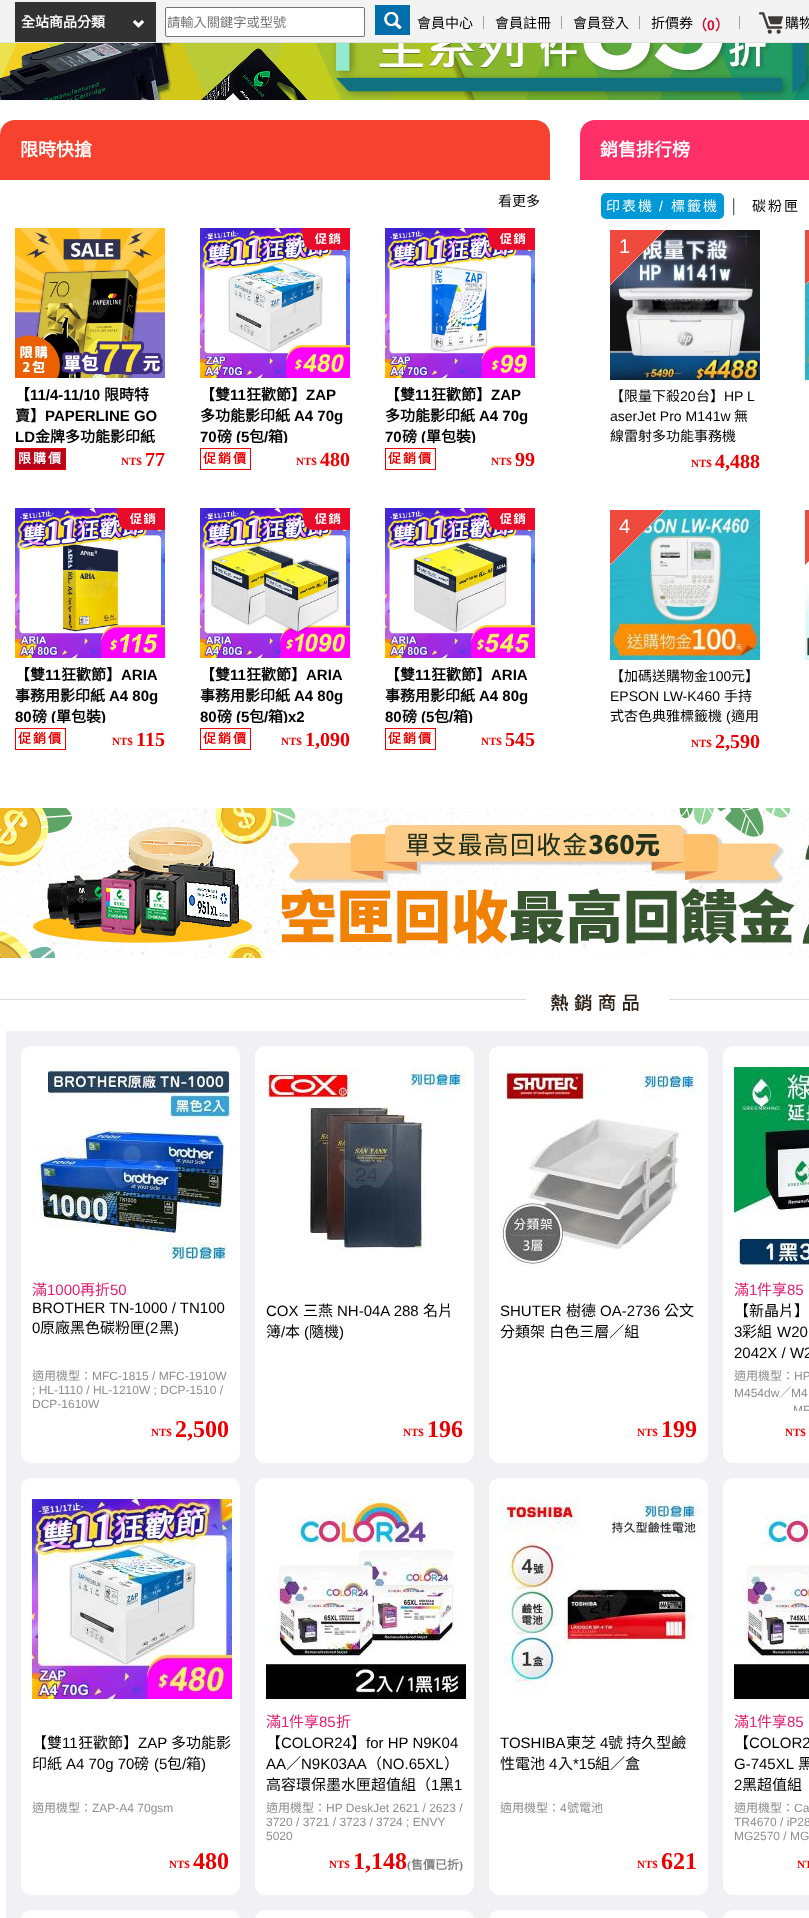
<svg xmlns="http://www.w3.org/2000/svg" width="809" height="1918" viewBox="0 0 809 1918">
  <defs>
    <clipPath id="clip1"><rect x="15" y="383" width="150" height="60"/></clipPath>
    <clipPath id="clip2"><rect x="200" y="383" width="150" height="60"/></clipPath>
    <clipPath id="clip3"><rect x="385" y="383" width="150" height="60"/></clipPath>
    <clipPath id="clip4"><rect x="15" y="663" width="150" height="60"/></clipPath>
    <clipPath id="clip5"><rect x="200" y="663" width="150" height="60"/></clipPath>
    <clipPath id="clip6"><rect x="385" y="663" width="150" height="60"/></clipPath>
    <clipPath id="clip7"><rect x="734" y="1366" width="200" height="45"/></clipPath>
    <clipPath id="clip8"><rect x="266" y="1731" width="200" height="60"/></clipPath>
    <clipPath id="clip9"><rect x="734" y="1731" width="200" height="60"/></clipPath>
  </defs>
  <rect width="100%" height="100%" fill="#ffffff"/>
  <rect x="0" y="0" width="809" height="42" fill="#f3f3f3"/>
  <rect x="0" y="42" width="809" height="1" fill="#e1e1e1"/>
  <rect x="15" y="2" width="141" height="40" fill="#323232"/>
  <image x="132" y="20" width="12" height="8" href="img1.png"/>
  <text x="21" y="27" font-family="Noto Sans CJK TC" font-size="14" font-weight="bold" fill="#ffffff">全站商品分類</text>
  <rect x="165.5" y="7.5" width="199" height="29" rx="1.5" fill="#ffffff" stroke="#767676"/>
  <text x="167" y="27" font-family="Noto Sans CJK TC" font-size="13.25" fill="#757575">請輸入關鍵字或型號</text>
  <image x="375" y="5" width="35" height="30" href="img2.png"/>
  <rect x="483" y="16" width="1" height="13" fill="#a3a3a3"/>
  <text x="417" y="28" font-family="Noto Sans CJK TC" font-size="14" fill="#000000">會員中心</text>
  <rect x="561" y="16" width="1" height="13" fill="#a3a3a3"/>
  <text x="495" y="28" font-family="Noto Sans CJK TC" font-size="14" fill="#000000">會員註冊</text>
  <rect x="639" y="16" width="1" height="13" fill="#a3a3a3"/>
  <text x="573" y="28" font-family="Noto Sans CJK TC" font-size="14" fill="#000000">會員登入</text>
  <rect x="739" y="16" width="1" height="13" fill="#a3a3a3"/>
  <text x="651" y="28" font-family="Noto Sans CJK TC" font-size="14" fill="#000000">折價券</text>
  <text x="693" y="30" font-family="Noto Sans CJK TC" font-size="14" font-weight="bold" fill="#d40d34">（</text>
  <text x="707" y="30" font-family="Liberation Sans" font-size="14" font-weight="bold" fill="#d40d34">0</text>
  <text x="715" y="30" font-family="Noto Sans CJK TC" font-size="14" font-weight="bold" fill="#d40d34">）</text>
  <image x="759" y="12" width="24" height="22" href="img3.png"/>
  <text x="785" y="28" font-family="Noto Sans CJK TC" font-size="14" fill="#000000">購物</text>
  <image x="0" y="43" width="809" height="57" href="img4.png"/>
  <path d="M15 120H535C543.5 120 550 126.5 550 135V180H0V135C0 126.5 6.5 120 15 120Z" fill="#f7422f"/>
  <text x="20" y="156" font-family="Noto Sans CJK TC" font-size="18" font-weight="bold" fill="#ffffff">限時快搶</text>
  <text x="498" y="206" font-family="Noto Sans CJK TC" font-size="14" fill="#000000">看更多</text>
  <image x="15" y="228" width="150" height="150" href="img5.png"/>
  <text x="15" y="400" font-family="Noto Sans CJK TC" font-size="15" font-weight="bold" fill="#000000">【</text>
  <text x="30" y="400" font-family="Liberation Sans" font-size="15" font-weight="bold" fill="#000000">11/4-11/10</text>
  <text x="104" y="400" font-family="Noto Sans CJK TC" font-size="15" font-weight="bold" fill="#000000">限時特</text>
  <text x="15" y="421" font-family="Noto Sans CJK TC" font-size="15" font-weight="bold" fill="#000000">賣】</text>
  <text x="45" y="421" font-family="Liberation Sans" font-size="15" font-weight="bold" fill="#000000">PAPERLINE GO</text>
  <text x="15" y="442" font-family="Liberation Sans" font-size="15" font-weight="bold" fill="#000000">LD</text>
  <g clip-path="url(#clip1)">
    <text x="35" y="442" font-family="Noto Sans CJK TC" font-size="15" font-weight="bold" fill="#000000">金牌多功能影印紙</text>
  </g>
  <rect x="15.5" y="448.5" width="50" height="21" fill="#b70419" stroke="#ea0000"/>
  <text x="18" y="463" font-family="Noto Sans CJK TC" font-size="13" font-weight="bold" letter-spacing="2" fill="#ffffff">限購價</text>
  <text x="121" y="465" font-family="Liberation Serif" font-size="11" font-weight="bold" fill="#ea0000">NT$</text>
  <text x="145" y="466" font-family="Liberation Serif" font-size="20" font-weight="bold" fill="#ea0000">77</text>
  <image x="200" y="228" width="150" height="150" href="img6.png"/>
  <image x="301" y="228" width="49" height="22" href="img7.png"/>
  <text x="200" y="400" font-family="Noto Sans CJK TC" font-size="15" font-weight="bold" fill="#000000">【雙</text>
  <text x="230" y="400" font-family="Liberation Sans" font-size="15" font-weight="bold" fill="#000000">11</text>
  <text x="246" y="400" font-family="Noto Sans CJK TC" font-size="15" font-weight="bold" fill="#000000">狂歡節】</text>
  <text x="306" y="400" font-family="Liberation Sans" font-size="15" font-weight="bold" fill="#000000">ZAP</text>
  <text x="200" y="421" font-family="Noto Sans CJK TC" font-size="15" font-weight="bold" fill="#000000">多功能影印紙</text>
  <text x="294" y="421" font-family="Liberation Sans" font-size="15" font-weight="bold" fill="#000000">A4 70g</text>
  <text x="200" y="442" font-family="Liberation Sans" font-size="15" font-weight="bold" fill="#000000">70</text>
  <text x="217" y="442" font-family="Noto Sans CJK TC" font-size="15" font-weight="bold" fill="#000000">磅</text>
  <g clip-path="url(#clip2)">
    <text x="236" y="442" font-family="Liberation Sans" font-size="15" font-weight="bold" fill="#000000">(5</text>
  </g>
  <text x="249" y="442" font-family="Noto Sans CJK TC" font-size="15" font-weight="bold" fill="#000000">包</text>
  <text x="264" y="442" font-family="Liberation Sans" font-size="15" font-weight="bold" fill="#000000">/</text>
  <g clip-path="url(#clip2)">
    <text x="268" y="442" font-family="Noto Sans CJK TC" font-size="15" font-weight="bold" fill="#000000">箱</text>
    <text x="283" y="442" font-family="Liberation Sans" font-size="15" font-weight="bold" fill="#000000">)</text>
  </g>
  <rect x="200.5" y="448.5" width="50" height="21" fill="none" stroke="#ea0000"/>
  <text x="203" y="463" font-family="Noto Sans CJK TC" font-size="13" font-weight="bold" letter-spacing="2" fill="#ea0000">促銷價</text>
  <text x="296" y="465" font-family="Liberation Serif" font-size="11" font-weight="bold" fill="#ea0000">NT$</text>
  <text x="320" y="466" font-family="Liberation Serif" font-size="20" font-weight="bold" fill="#ea0000">480</text>
  <image x="385" y="228" width="150" height="150" href="img8.png"/>
  <image x="486" y="228" width="49" height="22" href="img9.png"/>
  <text x="385" y="400" font-family="Noto Sans CJK TC" font-size="15" font-weight="bold" fill="#000000">【雙</text>
  <text x="415" y="400" font-family="Liberation Sans" font-size="15" font-weight="bold" fill="#000000">11</text>
  <text x="431" y="400" font-family="Noto Sans CJK TC" font-size="15" font-weight="bold" fill="#000000">狂歡節】</text>
  <text x="491" y="400" font-family="Liberation Sans" font-size="15" font-weight="bold" fill="#000000">ZAP</text>
  <text x="385" y="421" font-family="Noto Sans CJK TC" font-size="15" font-weight="bold" fill="#000000">多功能影印紙</text>
  <text x="479" y="421" font-family="Liberation Sans" font-size="15" font-weight="bold" fill="#000000">A4 70g</text>
  <text x="385" y="442" font-family="Liberation Sans" font-size="15" font-weight="bold" fill="#000000">70</text>
  <text x="402" y="442" font-family="Noto Sans CJK TC" font-size="15" font-weight="bold" fill="#000000">磅</text>
  <g clip-path="url(#clip3)">
    <text x="421" y="442" font-family="Liberation Sans" font-size="15" font-weight="bold" fill="#000000">(</text>
  </g>
  <text x="426" y="442" font-family="Noto Sans CJK TC" font-size="15" font-weight="bold" fill="#000000">單包裝</text>
  <g clip-path="url(#clip3)">
    <text x="471" y="442" font-family="Liberation Sans" font-size="15" font-weight="bold" fill="#000000">)</text>
  </g>
  <rect x="385.5" y="448.5" width="50" height="21" fill="none" stroke="#ea0000"/>
  <text x="388" y="463" font-family="Noto Sans CJK TC" font-size="13" font-weight="bold" letter-spacing="2" fill="#ea0000">促銷價</text>
  <text x="491" y="465" font-family="Liberation Serif" font-size="11" font-weight="bold" fill="#ea0000">NT$</text>
  <text x="515" y="466" font-family="Liberation Serif" font-size="20" font-weight="bold" fill="#ea0000">99</text>
  <image x="15" y="508" width="150" height="150" href="img10.png"/>
  <image x="116" y="508" width="49" height="22" href="img9.png"/>
  <text x="15" y="680" font-family="Noto Sans CJK TC" font-size="15" font-weight="bold" fill="#000000">【雙</text>
  <text x="45" y="680" font-family="Liberation Sans" font-size="15" font-weight="bold" fill="#000000">11</text>
  <text x="61" y="680" font-family="Noto Sans CJK TC" font-size="15" font-weight="bold" fill="#000000">狂歡節】</text>
  <text x="121" y="680" font-family="Liberation Sans" font-size="15" font-weight="bold" fill="#000000">ARIA</text>
  <text x="15" y="701" font-family="Noto Sans CJK TC" font-size="15" font-weight="bold" fill="#000000">事務用影印紙</text>
  <text x="109" y="701" font-family="Liberation Sans" font-size="15" font-weight="bold" fill="#000000">A4 80g</text>
  <text x="15" y="722" font-family="Liberation Sans" font-size="15" font-weight="bold" fill="#000000">80</text>
  <text x="32" y="722" font-family="Noto Sans CJK TC" font-size="15" font-weight="bold" fill="#000000">磅</text>
  <g clip-path="url(#clip4)">
    <text x="51" y="722" font-family="Liberation Sans" font-size="15" font-weight="bold" fill="#000000">(</text>
  </g>
  <text x="56" y="722" font-family="Noto Sans CJK TC" font-size="15" font-weight="bold" fill="#000000">單包裝</text>
  <g clip-path="url(#clip4)">
    <text x="101" y="722" font-family="Liberation Sans" font-size="15" font-weight="bold" fill="#000000">)</text>
  </g>
  <rect x="15.5" y="728.5" width="50" height="21" fill="none" stroke="#ea0000"/>
  <text x="18" y="743" font-family="Noto Sans CJK TC" font-size="13" font-weight="bold" letter-spacing="2" fill="#ea0000">促銷價</text>
  <text x="112" y="745" font-family="Liberation Serif" font-size="11" font-weight="bold" fill="#ea0000">NT$</text>
  <text x="136" y="746" font-family="Liberation Serif" font-size="20" font-weight="bold" fill="#ea0000">115</text>
  <image x="200" y="508" width="150" height="150" href="img11.png"/>
  <image x="301" y="508" width="49" height="22" href="img7.png"/>
  <text x="200" y="680" font-family="Noto Sans CJK TC" font-size="15" font-weight="bold" fill="#000000">【雙</text>
  <text x="230" y="680" font-family="Liberation Sans" font-size="15" font-weight="bold" fill="#000000">11</text>
  <text x="246" y="680" font-family="Noto Sans CJK TC" font-size="15" font-weight="bold" fill="#000000">狂歡節】</text>
  <text x="306" y="680" font-family="Liberation Sans" font-size="15" font-weight="bold" fill="#000000">ARIA</text>
  <text x="200" y="701" font-family="Noto Sans CJK TC" font-size="15" font-weight="bold" fill="#000000">事務用影印紙</text>
  <text x="294" y="701" font-family="Liberation Sans" font-size="15" font-weight="bold" fill="#000000">A4 80g</text>
  <text x="200" y="722" font-family="Liberation Sans" font-size="15" font-weight="bold" fill="#000000">80</text>
  <text x="217" y="722" font-family="Noto Sans CJK TC" font-size="15" font-weight="bold" fill="#000000">磅</text>
  <g clip-path="url(#clip5)">
    <text x="236" y="722" font-family="Liberation Sans" font-size="15" font-weight="bold" fill="#000000">(5</text>
  </g>
  <text x="249" y="722" font-family="Noto Sans CJK TC" font-size="15" font-weight="bold" fill="#000000">包</text>
  <text x="264" y="722" font-family="Liberation Sans" font-size="15" font-weight="bold" fill="#000000">/</text>
  <g clip-path="url(#clip5)">
    <text x="268" y="722" font-family="Noto Sans CJK TC" font-size="15" font-weight="bold" fill="#000000">箱</text>
    <text x="283" y="722" font-family="Liberation Sans" font-size="15" font-weight="bold" fill="#000000">)x2</text>
  </g>
  <rect x="200.5" y="728.5" width="50" height="21" fill="none" stroke="#ea0000"/>
  <text x="203" y="743" font-family="Noto Sans CJK TC" font-size="13" font-weight="bold" letter-spacing="2" fill="#ea0000">促銷價</text>
  <text x="281" y="745" font-family="Liberation Serif" font-size="11" font-weight="bold" fill="#ea0000">NT$</text>
  <text x="305" y="746" font-family="Liberation Serif" font-size="20" font-weight="bold" fill="#ea0000">1,090</text>
  <image x="385" y="508" width="150" height="150" href="img12.png"/>
  <image x="486" y="508" width="49" height="22" href="img9.png"/>
  <text x="385" y="680" font-family="Noto Sans CJK TC" font-size="15" font-weight="bold" fill="#000000">【雙</text>
  <text x="415" y="680" font-family="Liberation Sans" font-size="15" font-weight="bold" fill="#000000">11</text>
  <text x="431" y="680" font-family="Noto Sans CJK TC" font-size="15" font-weight="bold" fill="#000000">狂歡節】</text>
  <text x="491" y="680" font-family="Liberation Sans" font-size="15" font-weight="bold" fill="#000000">ARIA</text>
  <text x="385" y="701" font-family="Noto Sans CJK TC" font-size="15" font-weight="bold" fill="#000000">事務用影印紙</text>
  <text x="479" y="701" font-family="Liberation Sans" font-size="15" font-weight="bold" fill="#000000">A4 80g</text>
  <text x="385" y="722" font-family="Liberation Sans" font-size="15" font-weight="bold" fill="#000000">80</text>
  <text x="402" y="722" font-family="Noto Sans CJK TC" font-size="15" font-weight="bold" fill="#000000">磅</text>
  <g clip-path="url(#clip6)">
    <text x="421" y="722" font-family="Liberation Sans" font-size="15" font-weight="bold" fill="#000000">(5</text>
  </g>
  <text x="434" y="722" font-family="Noto Sans CJK TC" font-size="15" font-weight="bold" fill="#000000">包</text>
  <text x="449" y="722" font-family="Liberation Sans" font-size="15" font-weight="bold" fill="#000000">/</text>
  <g clip-path="url(#clip6)">
    <text x="453" y="722" font-family="Noto Sans CJK TC" font-size="15" font-weight="bold" fill="#000000">箱</text>
    <text x="468" y="722" font-family="Liberation Sans" font-size="15" font-weight="bold" fill="#000000">)</text>
  </g>
  <rect x="385.5" y="728.5" width="50" height="21" fill="none" stroke="#ea0000"/>
  <text x="388" y="743" font-family="Noto Sans CJK TC" font-size="13" font-weight="bold" letter-spacing="2" fill="#ea0000">促銷價</text>
  <text x="481" y="745" font-family="Liberation Serif" font-size="11" font-weight="bold" fill="#ea0000">NT$</text>
  <text x="505" y="746" font-family="Liberation Serif" font-size="20" font-weight="bold" fill="#ea0000">545</text>
  <path d="M595 120H809C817.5 120 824 126.5 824 135V180H580V135C580 126.5 586.5 120 595 120Z" fill="#ff2f67"/>
  <text x="600" y="156" font-family="Noto Sans CJK TC" font-size="18" font-weight="bold" fill="#ffffff">銷售排行榜</text>
  <rect x="601" y="193" width="123" height="26" rx="5" fill="#0098d7"/>
  <text x="606" y="211" font-family="Noto Sans CJK TC" font-size="14" letter-spacing="2" fill="#ffffff">印表機</text>
  <text x="659" y="211" font-family="Liberation Sans" font-size="14" letter-spacing="2" fill="#ffffff">/</text>
  <text x="671" y="211" font-family="Noto Sans CJK TC" font-size="14" letter-spacing="2" fill="#ffffff">標籤機</text>
  <text x="730" y="211" font-family="Liberation Sans" font-size="14" letter-spacing="2" fill="#333333">│</text>
  <text x="752" y="211" font-family="Noto Sans CJK TC" font-size="14" letter-spacing="2" fill="#000000">碳粉匣</text>
  <image x="610" y="230" width="150" height="150" href="img13.png"/>
  <image x="610" y="230" width="55" height="55" href="img14.png"/>
  <text x="619" y="253" font-family="Liberation Sans" font-size="20" fill="#ffffff">1</text>
  <text x="610" y="401" font-family="Noto Sans CJK TC" font-size="14" fill="#000000">【限量下殺</text>
  <text x="680" y="401" font-family="Liberation Sans" font-size="14" fill="#000000">20</text>
  <text x="696" y="401" font-family="Noto Sans CJK TC" font-size="14" fill="#000000">台】</text>
  <text x="724" y="401" font-family="Liberation Sans" font-size="14" fill="#000000">HP L</text>
  <text x="610" y="421" font-family="Liberation Sans" font-size="14" fill="#000000">aserJet Pro M141w</text>
  <text x="734" y="421" font-family="Noto Sans CJK TC" font-size="14" fill="#000000">無</text>
  <text x="610" y="441" font-family="Noto Sans CJK TC" font-size="14" fill="#000000">線雷射多功能事務機</text>
  <text x="691" y="467" font-family="Liberation Serif" font-size="11" font-weight="bold" fill="#ea0000">NT$</text>
  <text x="715" y="468" font-family="Liberation Serif" font-size="20" font-weight="bold" fill="#ea0000">4,488</text>
  <image x="805" y="282" width="4" height="98" href="img16.png"/>
  <image x="805" y="230" width="4" height="55" href="img15.png"/>
  <image x="610" y="510" width="150" height="150" href="img17.png"/>
  <image x="610" y="510" width="55" height="55" href="img18.png"/>
  <text x="619" y="533" font-family="Liberation Sans" font-size="20" fill="#ffffff">4</text>
  <text x="610" y="681" font-family="Noto Sans CJK TC" font-size="14" fill="#000000">【加碼送購物金</text>
  <text x="708" y="681" font-family="Liberation Sans" font-size="14" fill="#000000">100</text>
  <text x="731" y="681" font-family="Noto Sans CJK TC" font-size="14" fill="#000000">元】</text>
  <text x="610" y="701" font-family="Liberation Sans" font-size="14" fill="#000000">EPSON LW-K460</text>
  <text x="724" y="701" font-family="Noto Sans CJK TC" font-size="14" fill="#000000">手持</text>
  <text x="610" y="721" font-family="Noto Sans CJK TC" font-size="14" fill="#000000">式杏色典雅標籤機</text>
  <text x="726" y="721" font-family="Liberation Sans" font-size="14" fill="#000000">(</text>
  <text x="731" y="721" font-family="Noto Sans CJK TC" font-size="14" fill="#000000">適用</text>
  <text x="691" y="747" font-family="Liberation Serif" font-size="11" font-weight="bold" fill="#ea0000">NT$</text>
  <text x="715" y="748" font-family="Liberation Serif" font-size="20" font-weight="bold" fill="#ea0000">2,590</text>
  <image x="805" y="562" width="4" height="98" href="img20.png"/>
  <image x="805" y="510" width="4" height="55" href="img19.png"/>
  <image x="0" y="808" width="809" height="150" href="img21.png"/>
  <image x="0" y="994" width="809" height="17" href="img22.png"/>
  <rect x="6" y="1031" width="803" height="887" fill="#f1f1f5"/>
  <rect x="21.5" y="1046.5" width="218" height="416" rx="9.5" fill="#ffffff" stroke="#ffffff"/>
  <image x="32" y="1067" width="200" height="193" href="img23.png"/>
  <text x="32" y="1295" font-family="Noto Sans CJK TC" font-size="15" fill="#e02073">滿</text>
  <text x="47" y="1295" font-family="Liberation Sans" font-size="15" fill="#e02073">1000</text>
  <text x="80" y="1295" font-family="Noto Sans CJK TC" font-size="15" fill="#e02073">再折</text>
  <text x="110" y="1295" font-family="Liberation Sans" font-size="15" fill="#e02073">50</text>
  <text x="32" y="1313" font-family="Liberation Sans" font-size="15" fill="#000000">BROTHER TN-1000 / TN100</text>
  <text x="32" y="1333" font-family="Liberation Sans" font-size="15" fill="#000000">0</text>
  <text x="40" y="1333" font-family="Noto Sans CJK TC" font-size="15" fill="#000000">原廠黑色碳粉匣</text>
  <text x="145" y="1333" font-family="Liberation Sans" font-size="15" fill="#000000">(2</text>
  <text x="159" y="1333" font-family="Noto Sans CJK TC" font-size="15" fill="#000000">黑</text>
  <text x="174" y="1333" font-family="Liberation Sans" font-size="15" fill="#000000">)</text>
  <text x="32" y="1380" font-family="Noto Sans CJK TC" font-size="12" fill="#8e8e8e">適用機型：</text>
  <text x="92" y="1380" font-family="Liberation Sans" font-size="12" fill="#8e8e8e">MFC-1815 / MFC-1910W</text>
  <text x="32" y="1394" font-family="Liberation Sans" font-size="12" fill="#8e8e8e">; HL-1110 / HL-1210W ; DCP-1510 /</text>
  <text x="32" y="1408" font-family="Liberation Sans" font-size="12" fill="#8e8e8e">DCP-1610W</text>
  <text x="151" y="1436" font-family="Liberation Serif" font-size="11" font-weight="bold" fill="#ea0000">NT$</text>
  <text x="175" y="1437" font-family="Liberation Serif" font-size="24" font-weight="bold" fill="#ea0000">2,500</text>
  <rect x="255.5" y="1046.5" width="218" height="416" rx="9.5" fill="#ffffff" stroke="#ffffff"/>
  <image x="266" y="1067" width="200" height="186" href="img24.png"/>
  <text x="266" y="1316" font-family="Liberation Sans" font-size="15" fill="#000000">COX</text>
  <text x="303" y="1316" font-family="Noto Sans CJK TC" font-size="15" fill="#000000">三燕</text>
  <text x="337" y="1316" font-family="Liberation Sans" font-size="15" fill="#000000">NH-04A 288</text>
  <text x="423" y="1316" font-family="Noto Sans CJK TC" font-size="15" fill="#000000">名片</text>
  <text x="266" y="1337" font-family="Noto Sans CJK TC" font-size="15" fill="#000000">簿</text>
  <text x="281" y="1337" font-family="Liberation Sans" font-size="15" fill="#000000">/</text>
  <text x="285" y="1337" font-family="Noto Sans CJK TC" font-size="15" fill="#000000">本</text>
  <text x="304" y="1337" font-family="Liberation Sans" font-size="15" fill="#000000">(</text>
  <text x="309" y="1337" font-family="Noto Sans CJK TC" font-size="15" fill="#000000">隨機</text>
  <text x="339" y="1337" font-family="Liberation Sans" font-size="15" fill="#000000">)</text>
  <text x="403" y="1436" font-family="Liberation Serif" font-size="11" font-weight="bold" fill="#ea0000">NT$</text>
  <text x="427" y="1437" font-family="Liberation Serif" font-size="24" font-weight="bold" fill="#ea0000">196</text>
  <rect x="489.5" y="1046.5" width="218" height="416" rx="9.5" fill="#ffffff" stroke="#ffffff"/>
  <image x="500" y="1067" width="200" height="200" href="img25.png"/>
  <text x="500" y="1316" font-family="Liberation Sans" font-size="15" fill="#000000">SHUTER</text>
  <text x="566" y="1316" font-family="Noto Sans CJK TC" font-size="15" fill="#000000">樹德</text>
  <text x="600" y="1316" font-family="Liberation Sans" font-size="15" fill="#000000">OA-2736</text>
  <text x="664" y="1316" font-family="Noto Sans CJK TC" font-size="15" fill="#000000">公文</text>
  <text x="500" y="1337" word-spacing="1" font-family="Noto Sans CJK TC" font-size="15" fill="#000000">分類架 白色三層／組</text>
  <text x="637" y="1436" font-family="Liberation Serif" font-size="11" font-weight="bold" fill="#ea0000">NT$</text>
  <text x="661" y="1437" font-family="Liberation Serif" font-size="24" font-weight="bold" fill="#ea0000">199</text>
  <rect x="723.5" y="1046.5" width="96" height="416" rx="9.5" fill="#ffffff" stroke="#ffffff"/>
  <image x="734" y="1067" width="75" height="200" href="img26.png"/>
  <text x="734" y="1295" font-family="Noto Sans CJK TC" font-size="15" fill="#e02073">滿</text>
  <text x="749" y="1295" font-family="Liberation Sans" font-size="15" fill="#e02073">1</text>
  <text x="757" y="1295" font-family="Noto Sans CJK TC" font-size="15" fill="#e02073">件享</text>
  <text x="787" y="1295" font-family="Liberation Sans" font-size="15" fill="#e02073">85</text>
  <text x="734" y="1316" font-family="Noto Sans CJK TC" font-size="15" fill="#000000">【新晶片】</text>
  <text x="734" y="1337" font-family="Liberation Sans" font-size="15" fill="#000000">3</text>
  <text x="742" y="1337" font-family="Noto Sans CJK TC" font-size="15" fill="#000000">彩組</text>
  <text x="777" y="1337" font-family="Liberation Sans" font-size="15" fill="#000000">W20</text>
  <text x="734" y="1358" font-family="Liberation Sans" font-size="15" fill="#000000">2042X / W2</text>
  <text x="734" y="1380" font-family="Noto Sans CJK TC" font-size="12" fill="#8e8e8e">適用機型：</text>
  <text x="794" y="1380" font-family="Liberation Sans" font-size="12" fill="#8e8e8e">HP</text>
  <text x="734" y="1397" font-family="Liberation Sans" font-size="12" fill="#8e8e8e">M454dw</text>
  <text x="779" y="1397" font-family="Noto Sans CJK TC" font-size="12" fill="#8e8e8e">／</text>
  <text x="791" y="1397" font-family="Liberation Sans" font-size="12" fill="#8e8e8e">M4</text>
  <g clip-path="url(#clip7)">
    <text x="793" y="1414" font-family="Liberation Sans" font-size="12" fill="#8e8e8e">MF</text>
  </g>
  <text x="785" y="1436" font-family="Liberation Serif" font-size="11" font-weight="bold" fill="#ea0000">NT$</text>
  <rect x="21.5" y="1478.5" width="218" height="416" rx="9.5" fill="#ffffff" stroke="#ffffff"/>
  <image x="32" y="1499" width="200" height="200" href="img27.png"/>
  <text x="32" y="1748" font-family="Noto Sans CJK TC" font-size="15" fill="#000000">【雙</text>
  <text x="62" y="1748" font-family="Liberation Sans" font-size="15" fill="#000000">11</text>
  <text x="78" y="1748" font-family="Noto Sans CJK TC" font-size="15" fill="#000000">狂歡節】</text>
  <text x="138" y="1748" font-family="Liberation Sans" font-size="15" fill="#000000">ZAP</text>
  <text x="171" y="1748" font-family="Noto Sans CJK TC" font-size="15" fill="#000000">多功能影</text>
  <text x="32" y="1769" font-family="Noto Sans CJK TC" font-size="15" fill="#000000">印紙</text>
  <text x="66" y="1769" font-family="Liberation Sans" font-size="15" fill="#000000">A4 70g 70</text>
  <text x="134" y="1769" font-family="Noto Sans CJK TC" font-size="15" fill="#000000">磅</text>
  <text x="154" y="1769" font-family="Liberation Sans" font-size="15" fill="#000000">(5</text>
  <text x="167" y="1769" font-family="Noto Sans CJK TC" font-size="15" fill="#000000">包</text>
  <text x="182" y="1769" font-family="Liberation Sans" font-size="15" fill="#000000">/</text>
  <text x="186" y="1769" font-family="Noto Sans CJK TC" font-size="15" fill="#000000">箱</text>
  <text x="201" y="1769" font-family="Liberation Sans" font-size="15" fill="#000000">)</text>
  <text x="32" y="1812" font-family="Noto Sans CJK TC" font-size="12" fill="#8e8e8e">適用機型：</text>
  <text x="92" y="1812" font-family="Liberation Sans" font-size="12" fill="#8e8e8e">ZAP-A4 70gsm</text>
  <text x="169" y="1868" font-family="Liberation Serif" font-size="11" font-weight="bold" fill="#ea0000">NT$</text>
  <text x="193" y="1869" font-family="Liberation Serif" font-size="24" font-weight="bold" fill="#ea0000">480</text>
  <rect x="255.5" y="1478.5" width="218" height="416" rx="9.5" fill="#ffffff" stroke="#ffffff"/>
  <image x="266" y="1499" width="200" height="200" href="img28.png"/>
  <text x="266" y="1727" font-family="Noto Sans CJK TC" font-size="15" fill="#e02073">滿</text>
  <text x="281" y="1727" font-family="Liberation Sans" font-size="15" fill="#e02073">1</text>
  <text x="289" y="1727" font-family="Noto Sans CJK TC" font-size="15" fill="#e02073">件享</text>
  <text x="319" y="1727" font-family="Liberation Sans" font-size="15" fill="#e02073">85</text>
  <text x="336" y="1727" font-family="Noto Sans CJK TC" font-size="15" fill="#e02073">折</text>
  <text x="266" y="1748" font-family="Noto Sans CJK TC" font-size="15" fill="#000000">【</text>
  <text x="281" y="1748" font-family="Liberation Sans" font-size="15" fill="#000000">COLOR24</text>
  <text x="351" y="1748" font-family="Noto Sans CJK TC" font-size="15" fill="#000000">】</text>
  <text x="366" y="1748" font-family="Liberation Sans" font-size="15" fill="#000000">for HP N9K04</text>
  <text x="266" y="1769" font-family="Liberation Sans" font-size="15" fill="#000000">AA</text>
  <text x="286" y="1769" font-family="Noto Sans CJK TC" font-size="15" fill="#000000">／</text>
  <text x="301" y="1769" font-family="Liberation Sans" font-size="15" fill="#000000">N9K03AA</text>
  <text x="367" y="1769" font-family="Noto Sans CJK TC" font-size="15" fill="#000000">（</text>
  <text x="382" y="1769" font-family="Liberation Sans" font-size="15" fill="#000000">NO.65XL</text>
  <text x="444" y="1769" font-family="Noto Sans CJK TC" font-size="15" fill="#000000">）</text>
  <g clip-path="url(#clip8)">
    <text x="266" y="1790" font-family="Noto Sans CJK TC" font-size="15" fill="#000000">高容環保墨水匣超值組（</text>
  </g>
  <text x="431" y="1790" font-family="Liberation Sans" font-size="15" fill="#000000">1</text>
  <text x="439" y="1790" font-family="Noto Sans CJK TC" font-size="15" fill="#000000">黑</text>
  <text x="454" y="1790" font-family="Liberation Sans" font-size="15" fill="#000000">1</text>
  <text x="266" y="1812" font-family="Noto Sans CJK TC" font-size="12" fill="#8e8e8e">適用機型：</text>
  <text x="326" y="1812" font-family="Liberation Sans" font-size="12" fill="#8e8e8e">HP DeskJet 2621 / 2623 /</text>
  <text x="266" y="1826" font-family="Liberation Sans" font-size="12" fill="#8e8e8e">3720 / 3721 / 3723 / 3724 ; ENVY</text>
  <text x="266" y="1840" font-family="Liberation Sans" font-size="12" fill="#8e8e8e">5020</text>
  <text x="329" y="1868" font-family="Liberation Serif" font-size="11" font-weight="bold" fill="#ea0000">NT$</text>
  <text x="353" y="1869" font-family="Liberation Serif" font-size="24" font-weight="bold" fill="#ea0000">1,148</text>
  <text x="407" y="1869" font-family="Liberation Serif" font-size="12" font-weight="bold" fill="#808080">(</text>
  <text x="411" y="1869" font-family="Noto Sans CJK TC" font-size="12" font-weight="bold" fill="#808080">售價已折</text>
  <text x="459" y="1869" font-family="Liberation Serif" font-size="12" font-weight="bold" fill="#808080">)</text>
  <rect x="489.5" y="1478.5" width="218" height="416" rx="9.5" fill="#ffffff" stroke="#ffffff"/>
  <image x="500" y="1499" width="200" height="192" href="img29.png"/>
  <text x="500" y="1748" font-family="Liberation Sans" font-size="15" fill="#000000">TOSHIBA</text>
  <text x="566" y="1748" font-family="Noto Sans CJK TC" font-size="15" fill="#000000">東芝</text>
  <text x="600" y="1748" font-family="Liberation Sans" font-size="15" fill="#000000">4</text>
  <text x="608" y="1748" font-family="Noto Sans CJK TC" font-size="15" fill="#000000">號 持久型鹼</text>
  <text x="500" y="1769" font-family="Noto Sans CJK TC" font-size="15" fill="#000000">性電池</text>
  <text x="549" y="1769" font-family="Liberation Sans" font-size="15" fill="#000000">4</text>
  <text x="558" y="1769" font-family="Noto Sans CJK TC" font-size="15" fill="#000000">入</text>
  <text x="573" y="1769" font-family="Liberation Sans" font-size="15" fill="#000000">*15</text>
  <text x="595" y="1769" font-family="Noto Sans CJK TC" font-size="15" fill="#000000">組／盒</text>
  <text x="500" y="1812" font-family="Noto Sans CJK TC" font-size="12" fill="#8e8e8e">適用機型：</text>
  <text x="560" y="1812" font-family="Liberation Sans" font-size="12" fill="#8e8e8e">4</text>
  <text x="567" y="1812" font-family="Noto Sans CJK TC" font-size="12" fill="#8e8e8e">號電池</text>
  <text x="637" y="1868" font-family="Liberation Serif" font-size="11" font-weight="bold" fill="#ea0000">NT$</text>
  <text x="661" y="1869" font-family="Liberation Serif" font-size="24" font-weight="bold" fill="#ea0000">621</text>
  <rect x="723.5" y="1478.5" width="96" height="416" rx="9.5" fill="#ffffff" stroke="#ffffff"/>
  <image x="734" y="1514" width="75" height="185" href="img30.png"/>
  <text x="734" y="1727" font-family="Noto Sans CJK TC" font-size="15" fill="#e02073">滿</text>
  <text x="749" y="1727" font-family="Liberation Sans" font-size="15" fill="#e02073">1</text>
  <text x="757" y="1727" font-family="Noto Sans CJK TC" font-size="15" fill="#e02073">件享</text>
  <text x="787" y="1727" font-family="Liberation Sans" font-size="15" fill="#e02073">85</text>
  <text x="734" y="1748" font-family="Noto Sans CJK TC" font-size="15" fill="#000000">【</text>
  <text x="749" y="1748" font-family="Liberation Sans" font-size="15" fill="#000000">COLOR2</text>
  <text x="734" y="1769" font-family="Liberation Sans" font-size="15" fill="#000000">G-745XL</text>
  <text x="798" y="1769" font-family="Noto Sans CJK TC" font-size="15" fill="#000000">黑</text>
  <text x="734" y="1790" font-family="Liberation Sans" font-size="15" fill="#000000">2</text>
  <g clip-path="url(#clip9)">
    <text x="742" y="1790" font-family="Noto Sans CJK TC" font-size="15" fill="#000000">黑超值組</text>
  </g>
  <text x="734" y="1812" font-family="Noto Sans CJK TC" font-size="12" fill="#8e8e8e">適用機型：</text>
  <text x="794" y="1812" font-family="Liberation Sans" font-size="12" fill="#8e8e8e">Ca</text>
  <text x="734" y="1826" font-family="Liberation Sans" font-size="12" fill="#8e8e8e">TR4670 / iP28</text>
  <text x="734" y="1840" font-family="Liberation Sans" font-size="12" fill="#8e8e8e">MG2570 / MG</text>
  <text x="797" y="1868" font-family="Liberation Serif" font-size="11" font-weight="bold" fill="#ea0000">NT</text>
  <rect x="21.5" y="1910.5" width="218" height="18" rx="9.5" fill="#ffffff" stroke="#ffffff"/>
  <rect x="255.5" y="1910.5" width="218" height="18" rx="9.5" fill="#ffffff" stroke="#ffffff"/>
  <rect x="489.5" y="1910.5" width="218" height="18" rx="9.5" fill="#ffffff" stroke="#ffffff"/>
  <rect x="723.5" y="1910.5" width="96" height="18" rx="9.5" fill="#ffffff" stroke="#ffffff"/>
</svg>
